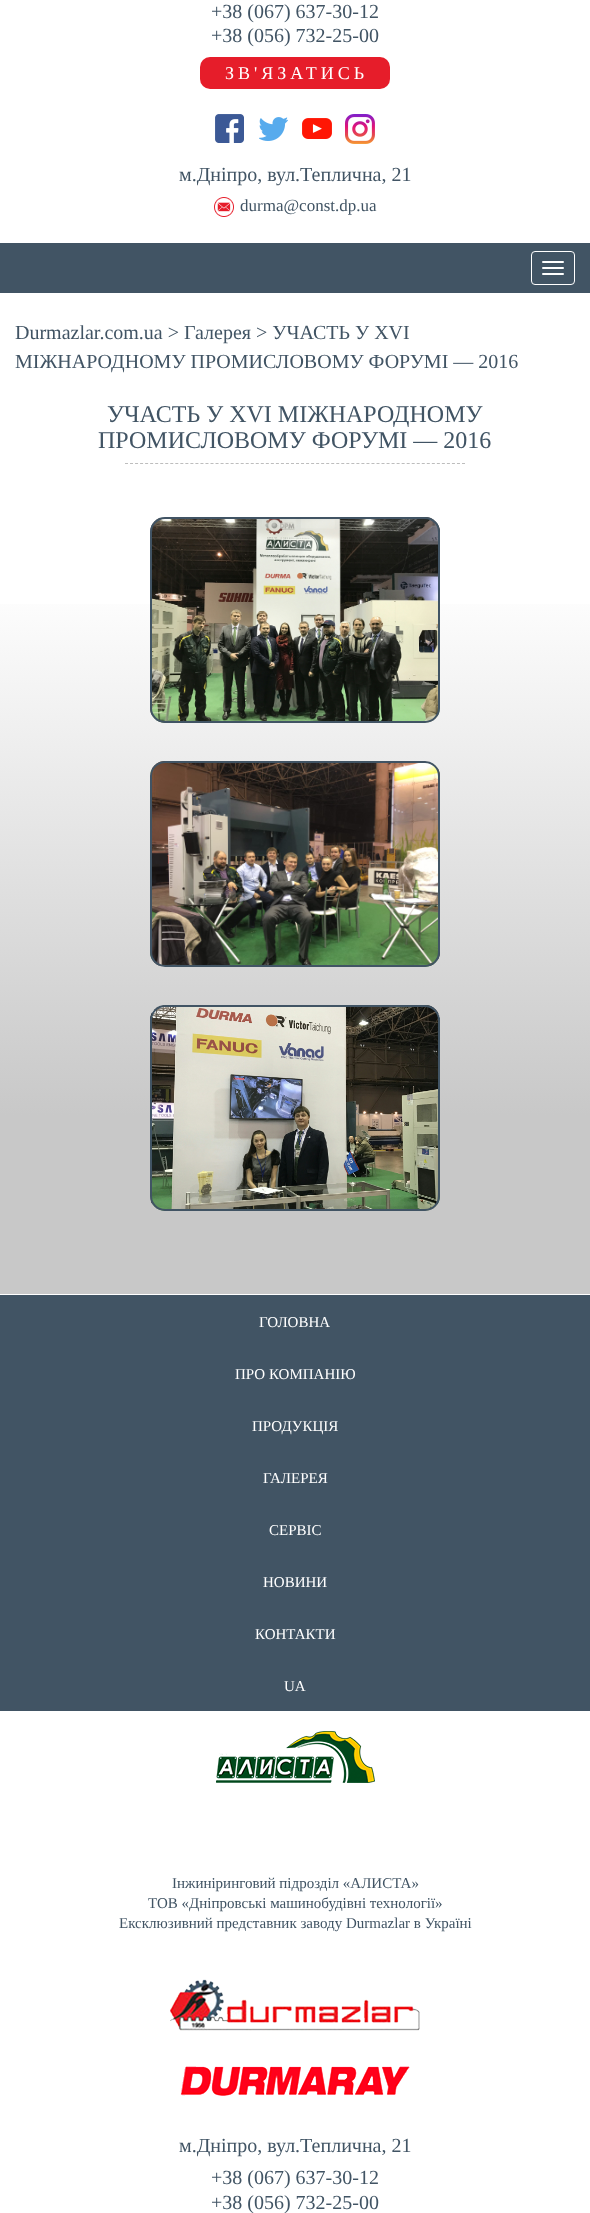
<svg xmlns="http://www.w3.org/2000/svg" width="590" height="2213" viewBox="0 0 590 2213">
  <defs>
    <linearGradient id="g1" gradientUnits="userSpaceOnUse" x1="295" y1="401" x2="295" y2="1294"><stop offset="0.2" stop-color="#ffffff"/><stop offset="0.8" stop-color="#c8c8c8"/></linearGradient>
  </defs>
  <rect width="100%" height="100%" fill="#ffffff"/>
  <text x="211" y="18" font-family="Liberation Serif" font-size="20" fill="#415464">+38 (067) 637-30-12</text>
  <text x="211" y="42" font-family="Liberation Serif" font-size="20" fill="#415464">+38 (056) 732-25-00</text>
  <rect x="200" y="57" width="190" height="32" rx="10" fill="#e61d2a"/>
  <text x="225" y="79" font-family="Liberation Serif" font-size="18" letter-spacing="4" fill="#ffffff">ЗВ'ЯЗАТИСЬ</text>
  <image x="215" y="114" width="29" height="29" href="img1.png"/>
  <image x="259" y="117" width="29" height="24" href="img2.png"/>
  <image x="302" y="118" width="30" height="21" href="img3.png"/>
  <image x="345" y="114" width="30" height="30" href="img4.png"/>
  <text x="179" y="181" font-family="Liberation Serif" font-size="20" fill="#415464">м.Дніпро, вул.Теплична, 21</text>
  <image x="214" y="197" width="20" height="20" href="img5.png"/>
  <text x="240" y="211" font-family="Liberation Serif" font-size="17" fill="#415464">durma@const.dp.ua</text>
  <rect x="0" y="243" width="590" height="50" fill="#415464"/>
  <rect x="531.5" y="251.5" width="43" height="33" rx="3.5" fill="none" stroke="#ffffff"/>
  <rect x="542" y="261" width="22" height="2" rx="1" fill="#ffffff"/>
  <rect x="542" y="267" width="22" height="2" rx="1" fill="#ffffff"/>
  <rect x="542" y="273" width="22" height="2" rx="1" fill="#ffffff"/>
  <text x="15" y="339" font-family="Liberation Serif" font-size="20" fill="#415464">Durmazlar.com.ua &gt; Галерея &gt; УЧАСТЬ У XVІ</text>
  <text x="15" y="368" font-family="Liberation Serif" font-size="20" fill="#415464">МІЖНАРОДНОМУ ПРОМИСЛОВОМУ ФОРУМІ — 2016</text>
  <rect x="0" y="604" width="590" height="690" fill="url(#g1)"/>
  <text x="107" y="422" font-family="Liberation Serif" font-size="24" fill="#415464">УЧАСТЬ У XVІ МІЖНАРОДНОМУ</text>
  <text x="98" y="448" font-family="Liberation Serif" font-size="24" fill="#415464">ПРОМИСЛОВОМУ ФОРУМІ — 2016</text>
  <path d="M125 463.5H465" fill="none" stroke="#bdbdbd" stroke-dasharray="3 2.03"/>
  <image x="150" y="517" width="290" height="206" href="img6.png"/>
  <rect x="151" y="518" width="288" height="204" rx="14" fill="none" stroke="#415464" stroke-width="2"/>
  <image x="150" y="761" width="290" height="206" href="img7.png"/>
  <rect x="151" y="762" width="288" height="204" rx="14" fill="none" stroke="#415464" stroke-width="2"/>
  <image x="150" y="1005" width="290" height="206" href="img8.png"/>
  <rect x="151" y="1006" width="288" height="204" rx="14" fill="none" stroke="#415464" stroke-width="2"/>
  <rect x="0" y="1295" width="590" height="416" fill="#415464"/>
  <text x="259" y="1327" font-family="Liberation Serif" font-size="15" fill="#ffffff">ГОЛОВНА</text>
  <text x="235" y="1379" font-family="Liberation Serif" font-size="15" fill="#ffffff">ПРО КОМПАНІЮ</text>
  <text x="252" y="1431" font-family="Liberation Serif" font-size="15" fill="#ffffff">ПРОДУКЦІЯ</text>
  <text x="263" y="1483" font-family="Liberation Serif" font-size="15" fill="#ffffff">ГАЛЕРЕЯ</text>
  <text x="269" y="1535" font-family="Liberation Serif" font-size="15" fill="#ffffff">СЕРВІС</text>
  <text x="263" y="1587" font-family="Liberation Serif" font-size="15" fill="#ffffff">НОВИНИ</text>
  <text x="255" y="1639" font-family="Liberation Serif" font-size="15" fill="#ffffff">КОНТАКТИ</text>
  <text x="284" y="1691" font-family="Liberation Serif" font-size="15" fill="#ffffff">UA</text>
  <image x="216" y="1731" width="159" height="52" href="img9.png"/>
  <text x="172" y="1888" font-family="Liberation Serif" font-size="15" fill="#415464">Інжиніринговий підрозділ «АЛИСТА»</text>
  <text x="148" y="1908" font-family="Liberation Serif" font-size="15" fill="#415464">ТОВ «Дніпровські машинобудівні технології»</text>
  <text x="119" y="1928" font-family="Liberation Serif" font-size="15" fill="#415464">Ексклюзивний представник заводу Durmazlar в Україні</text>
  <image x="170" y="1979" width="250" height="52" href="img10.png"/>
  <image x="180" y="2066" width="230" height="30" href="img11.png"/>
  <text x="179" y="2152" font-family="Liberation Serif" font-size="20" fill="#415464">м.Дніпро, вул.Теплична, 21</text>
  <text x="211" y="2184" font-family="Liberation Serif" font-size="20" fill="#415464">+38 (067) 637-30-12</text>
  <text x="211" y="2209" font-family="Liberation Serif" font-size="20" fill="#415464">+38 (056) 732-25-00</text>
</svg>
